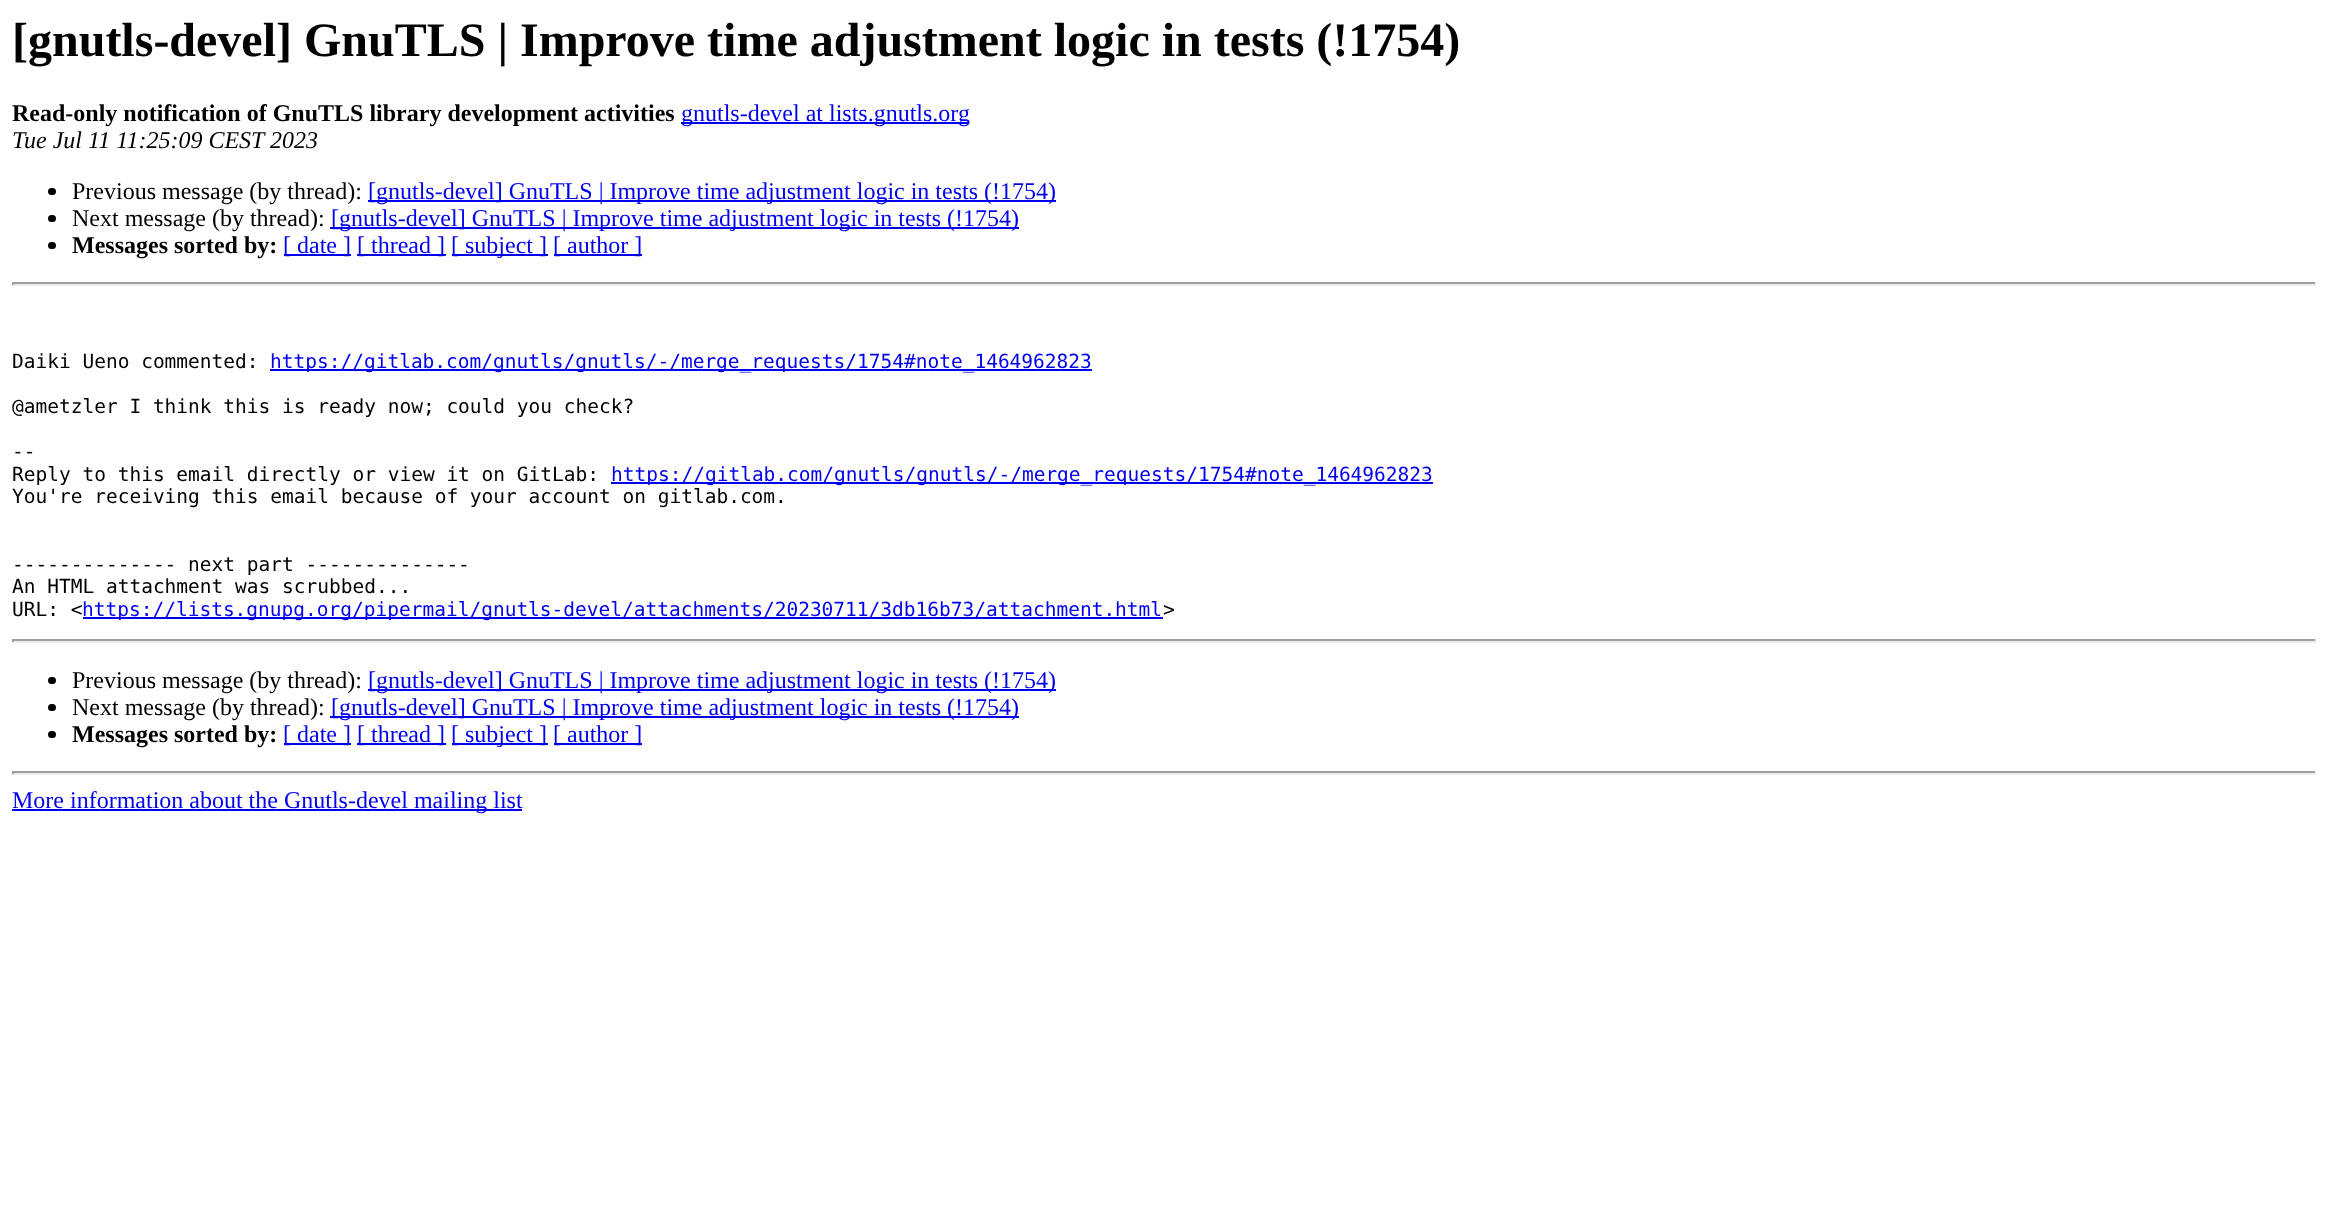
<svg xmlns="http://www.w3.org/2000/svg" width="2328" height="1222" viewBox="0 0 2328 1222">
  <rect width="100%" height="100%" fill="#ffffff"/>
  <text x="12" y="56" font-family="Liberation Serif" font-size="48" font-weight="bold" fill="#000000">[gnutls-devel] GnuTLS | Improve time adjustment logic in tests (!1754)</text>
  <text x="12" y="121" font-family="Liberation Serif" font-size="24" font-weight="bold" fill="#000000">Read-only notification of GnuTLS library development activities</text>
  <rect x="681" y="122" width="288" height="2" fill="#0000ee"/>
  <text x="681" y="121" font-family="Liberation Serif" font-size="24" fill="#0000ee">gnutls-devel at lists.gnutls.org</text>
  <text x="12" y="148" font-family="Liberation Serif" font-size="24" font-style="italic" fill="#000000">Tue Jul 11 11:25:09 CEST 2023</text>
  <rect x="48" y="188" width="8" height="7" rx="3.5" fill="#000000"/>
  <text x="72" y="199" font-family="Liberation Serif" font-size="24" fill="#000000">Previous message (by thread):</text>
  <rect x="368" y="200" width="688" height="2" fill="#0000ee"/>
  <text x="368" y="199" font-family="Liberation Serif" font-size="24" fill="#0000ee">[gnutls-devel] GnuTLS | Improve time adjustment logic in tests (!1754)</text>
  <rect x="48" y="215" width="8" height="7" rx="3.5" fill="#000000"/>
  <text x="72" y="226" font-family="Liberation Serif" font-size="24" fill="#000000">Next message (by thread):</text>
  <rect x="330" y="227" width="689" height="2" fill="#0000ee"/>
  <text x="331" y="226" font-family="Liberation Serif" font-size="24" fill="#0000ee">[gnutls-devel] GnuTLS | Improve time adjustment logic in tests (!1754)</text>
  <rect x="48" y="242" width="8" height="7" rx="3.5" fill="#000000"/>
  <text x="72" y="253" font-family="Liberation Serif" font-size="24" font-weight="bold" fill="#000000">Messages sorted by:</text>
  <rect x="284" y="254" width="67" height="2" fill="#0000ee"/>
  <text x="283" y="253" font-family="Liberation Serif" font-size="24" fill="#0000ee">[ date ]</text>
  <rect x="357" y="254" width="89" height="2" fill="#0000ee"/>
  <text x="357" y="253" font-family="Liberation Serif" font-size="24" fill="#0000ee">[ thread ]</text>
  <rect x="452" y="254" width="96" height="2" fill="#0000ee"/>
  <text x="451" y="253" font-family="Liberation Serif" font-size="24" fill="#0000ee">[ subject ]</text>
  <rect x="554" y="254" width="88" height="2" fill="#0000ee"/>
  <text x="553" y="253" font-family="Liberation Serif" font-size="24" fill="#0000ee">[ author ]</text>
  <rect x="12" y="282" width="2304" height="2" fill="#9f9f9f"/>
  <rect x="2315" y="282" width="2" height="3" fill="#eeeeee"/>
  <rect x="12" y="284" width="2304" height="2" fill="#eeeeee"/>
  <rect x="12" y="282" width="2" height="3" fill="#9f9f9f"/>
  <text x="12" y="368" font-family="DejaVu Sans Mono" font-size="19.5" fill="#000000">Daiki Ueno commented:</text>
  <rect x="270" y="369" width="822" height="2" fill="#0000ee"/>
  <text x="270" y="368" font-family="DejaVu Sans Mono" font-size="19.5" fill="#0000ee">https://gitlab.com/gnutls/gnutls/-/merge_requests/1754#note_1464962823</text>
  <text x="12" y="413" font-family="DejaVu Sans Mono" font-size="19.5" fill="#000000">@ametzler I think this is ready now; could you check?</text>
  <text x="12" y="458" font-family="DejaVu Sans Mono" font-size="19.5" fill="#000000">--</text>
  <text x="12" y="481" font-family="DejaVu Sans Mono" font-size="19.5" fill="#000000">Reply to this email directly or view it on GitLab:</text>
  <rect x="611" y="482" width="822" height="2" fill="#0000ee"/>
  <text x="611" y="481" font-family="DejaVu Sans Mono" font-size="19.5" fill="#0000ee">https://gitlab.com/gnutls/gnutls/-/merge_requests/1754#note_1464962823</text>
  <text x="12" y="503" font-family="DejaVu Sans Mono" font-size="19.5" fill="#000000">You're receiving this email because of your account on gitlab.com.</text>
  <text x="12" y="571" font-family="DejaVu Sans Mono" font-size="19.5" fill="#000000">-------------- next part --------------</text>
  <text x="12" y="593" font-family="DejaVu Sans Mono" font-size="19.5" fill="#000000">An HTML attachment was scrubbed...</text>
  <text x="12" y="616" font-family="DejaVu Sans Mono" font-size="19.5" fill="#000000">URL: &lt;</text>
  <rect x="83" y="617" width="1080" height="2" fill="#0000ee"/>
  <text x="82" y="616" font-family="DejaVu Sans Mono" font-size="19.5" fill="#0000ee">https://lists.gnupg.org/pipermail/gnutls-devel/attachments/20230711/3db16b73/attachment.html</text>
  <text x="1163" y="616" font-family="DejaVu Sans Mono" font-size="19.5" fill="#000000">&gt;</text>
  <rect x="12" y="639" width="2304" height="2" fill="#9f9f9f"/>
  <rect x="2315" y="639" width="2" height="3" fill="#eeeeee"/>
  <rect x="12" y="641" width="2304" height="2" fill="#eeeeee"/>
  <rect x="12" y="639" width="2" height="3" fill="#9f9f9f"/>
  <rect x="48" y="677" width="8" height="7" rx="3.5" fill="#000000"/>
  <text x="72" y="688" font-family="Liberation Serif" font-size="24" fill="#000000">Previous message (by thread):</text>
  <rect x="368" y="689" width="688" height="2" fill="#0000ee"/>
  <text x="368" y="688" font-family="Liberation Serif" font-size="24" fill="#0000ee">[gnutls-devel] GnuTLS | Improve time adjustment logic in tests (!1754)</text>
  <rect x="48" y="704" width="8" height="7" rx="3.5" fill="#000000"/>
  <text x="72" y="715" font-family="Liberation Serif" font-size="24" fill="#000000">Next message (by thread):</text>
  <rect x="330" y="716" width="689" height="2" fill="#0000ee"/>
  <text x="331" y="715" font-family="Liberation Serif" font-size="24" fill="#0000ee">[gnutls-devel] GnuTLS | Improve time adjustment logic in tests (!1754)</text>
  <rect x="48" y="731" width="8" height="7" rx="3.5" fill="#000000"/>
  <text x="72" y="742" font-family="Liberation Serif" font-size="24" font-weight="bold" fill="#000000">Messages sorted by:</text>
  <rect x="284" y="743" width="67" height="2" fill="#0000ee"/>
  <text x="283" y="742" font-family="Liberation Serif" font-size="24" fill="#0000ee">[ date ]</text>
  <rect x="357" y="743" width="89" height="2" fill="#0000ee"/>
  <text x="357" y="742" font-family="Liberation Serif" font-size="24" fill="#0000ee">[ thread ]</text>
  <rect x="452" y="743" width="96" height="2" fill="#0000ee"/>
  <text x="451" y="742" font-family="Liberation Serif" font-size="24" fill="#0000ee">[ subject ]</text>
  <rect x="554" y="743" width="88" height="2" fill="#0000ee"/>
  <text x="553" y="742" font-family="Liberation Serif" font-size="24" fill="#0000ee">[ author ]</text>
  <rect x="12" y="771" width="2304" height="2" fill="#9f9f9f"/>
  <rect x="2315" y="771" width="2" height="3" fill="#eeeeee"/>
  <rect x="12" y="773" width="2304" height="2" fill="#eeeeee"/>
  <rect x="12" y="771" width="2" height="3" fill="#9f9f9f"/>
  <rect x="12" y="809" width="510" height="2" fill="#0000ee"/>
  <text x="12" y="808" font-family="Liberation Serif" font-size="24" fill="#0000ee">More information about the Gnutls-devel mailing list</text>
</svg>
